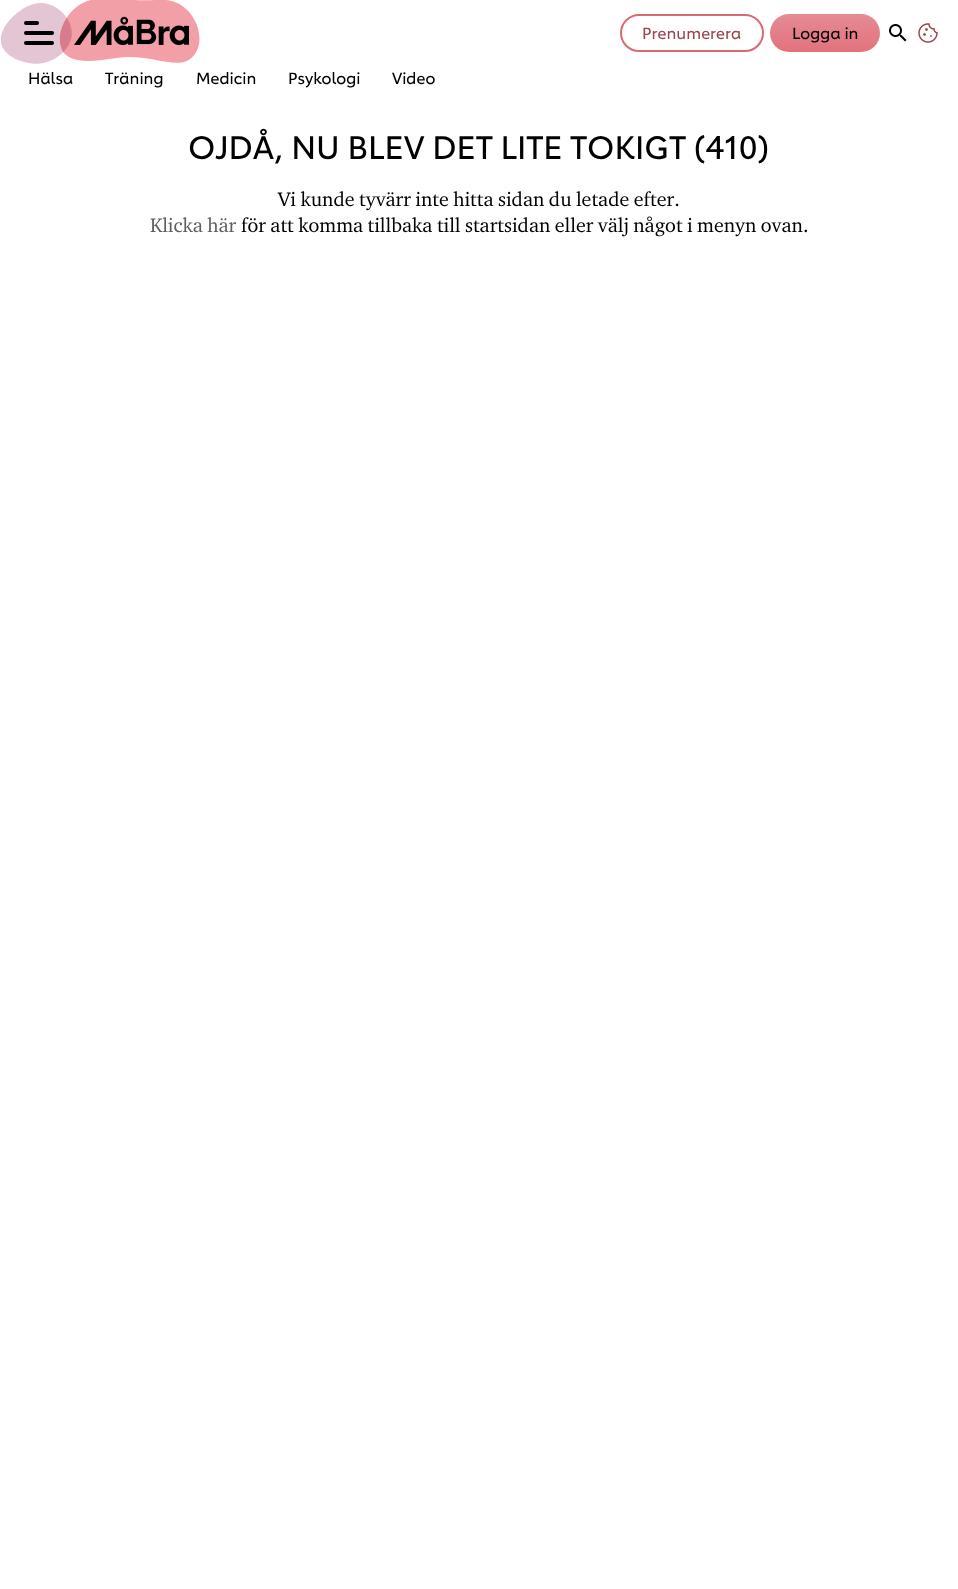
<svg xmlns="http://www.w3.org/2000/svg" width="958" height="1589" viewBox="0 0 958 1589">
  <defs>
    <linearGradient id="g1" gradientUnits="userSpaceOnUse" x1="825" y1="14" x2="825" y2="52"><stop offset="0" stop-color="#e68b94"/><stop offset="1" stop-color="#e1727d"/></linearGradient>
  </defs>
  <rect width="100%" height="100%" fill="#ffffff"/>
  <image x="0" y="0" width="200" height="64" href="img1.png"/>
  <image x="74" y="16" width="115" height="29" href="img2.png"/>
  <rect x="24" y="21" width="15" height="4" rx="2" fill="#000000"/>
  <rect x="24" y="31" width="30" height="4" rx="2" fill="#000000"/>
  <rect x="24" y="41" width="30" height="4" rx="2" fill="#000000"/>
  <rect x="621" y="15" width="142" height="36" rx="18" fill="none" stroke="#d96973" stroke-width="2"/>
  <text x="642" y="39" font-family="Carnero" font-size="16" fill="#99474e">Prenumerera</text>
  <rect x="770" y="14" width="110" height="38" rx="19" fill="url(#g1)"/>
  <text x="792" y="39" font-family="Carnero" font-size="16" fill="#000000">Logga in</text>
  <image x="889" y="24" width="18" height="18" href="img3.png"/>
  <image x="918" y="23" width="20" height="20" href="img4.png"/>
  <text x="28" y="84" font-family="Carnero" font-size="16" fill="#000000">Hälsa</text>
  <text x="105" y="84" font-family="Carnero" font-size="16" fill="#000000">Träning</text>
  <text x="196" y="84" font-family="Carnero" font-size="16" fill="#000000">Medicin</text>
  <text x="288" y="84" font-family="Carnero" font-size="16" fill="#000000">Psykologi</text>
  <text x="392" y="84" font-family="Carnero" font-size="16" fill="#000000">Video</text>
  <text x="188" y="159" font-family="Carnero" font-size="32" fill="#000000">OJDÅ, NU BLEV DET LITE TOKIGT (410)</text>
  <text x="278" y="206" font-family="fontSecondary" font-size="20" fill="#000000">Vi kunde tyvärr inte hitta sidan du letade efter.</text>
  <text x="150" y="232" font-family="fontSecondary" font-size="20" fill="#5f5f5f">Klicka här</text>
  <text x="241" y="232" font-family="fontSecondary" font-size="20" fill="#000000">för att komma tillbaka till startsidan eller välj något i menyn ovan.</text>
</svg>
